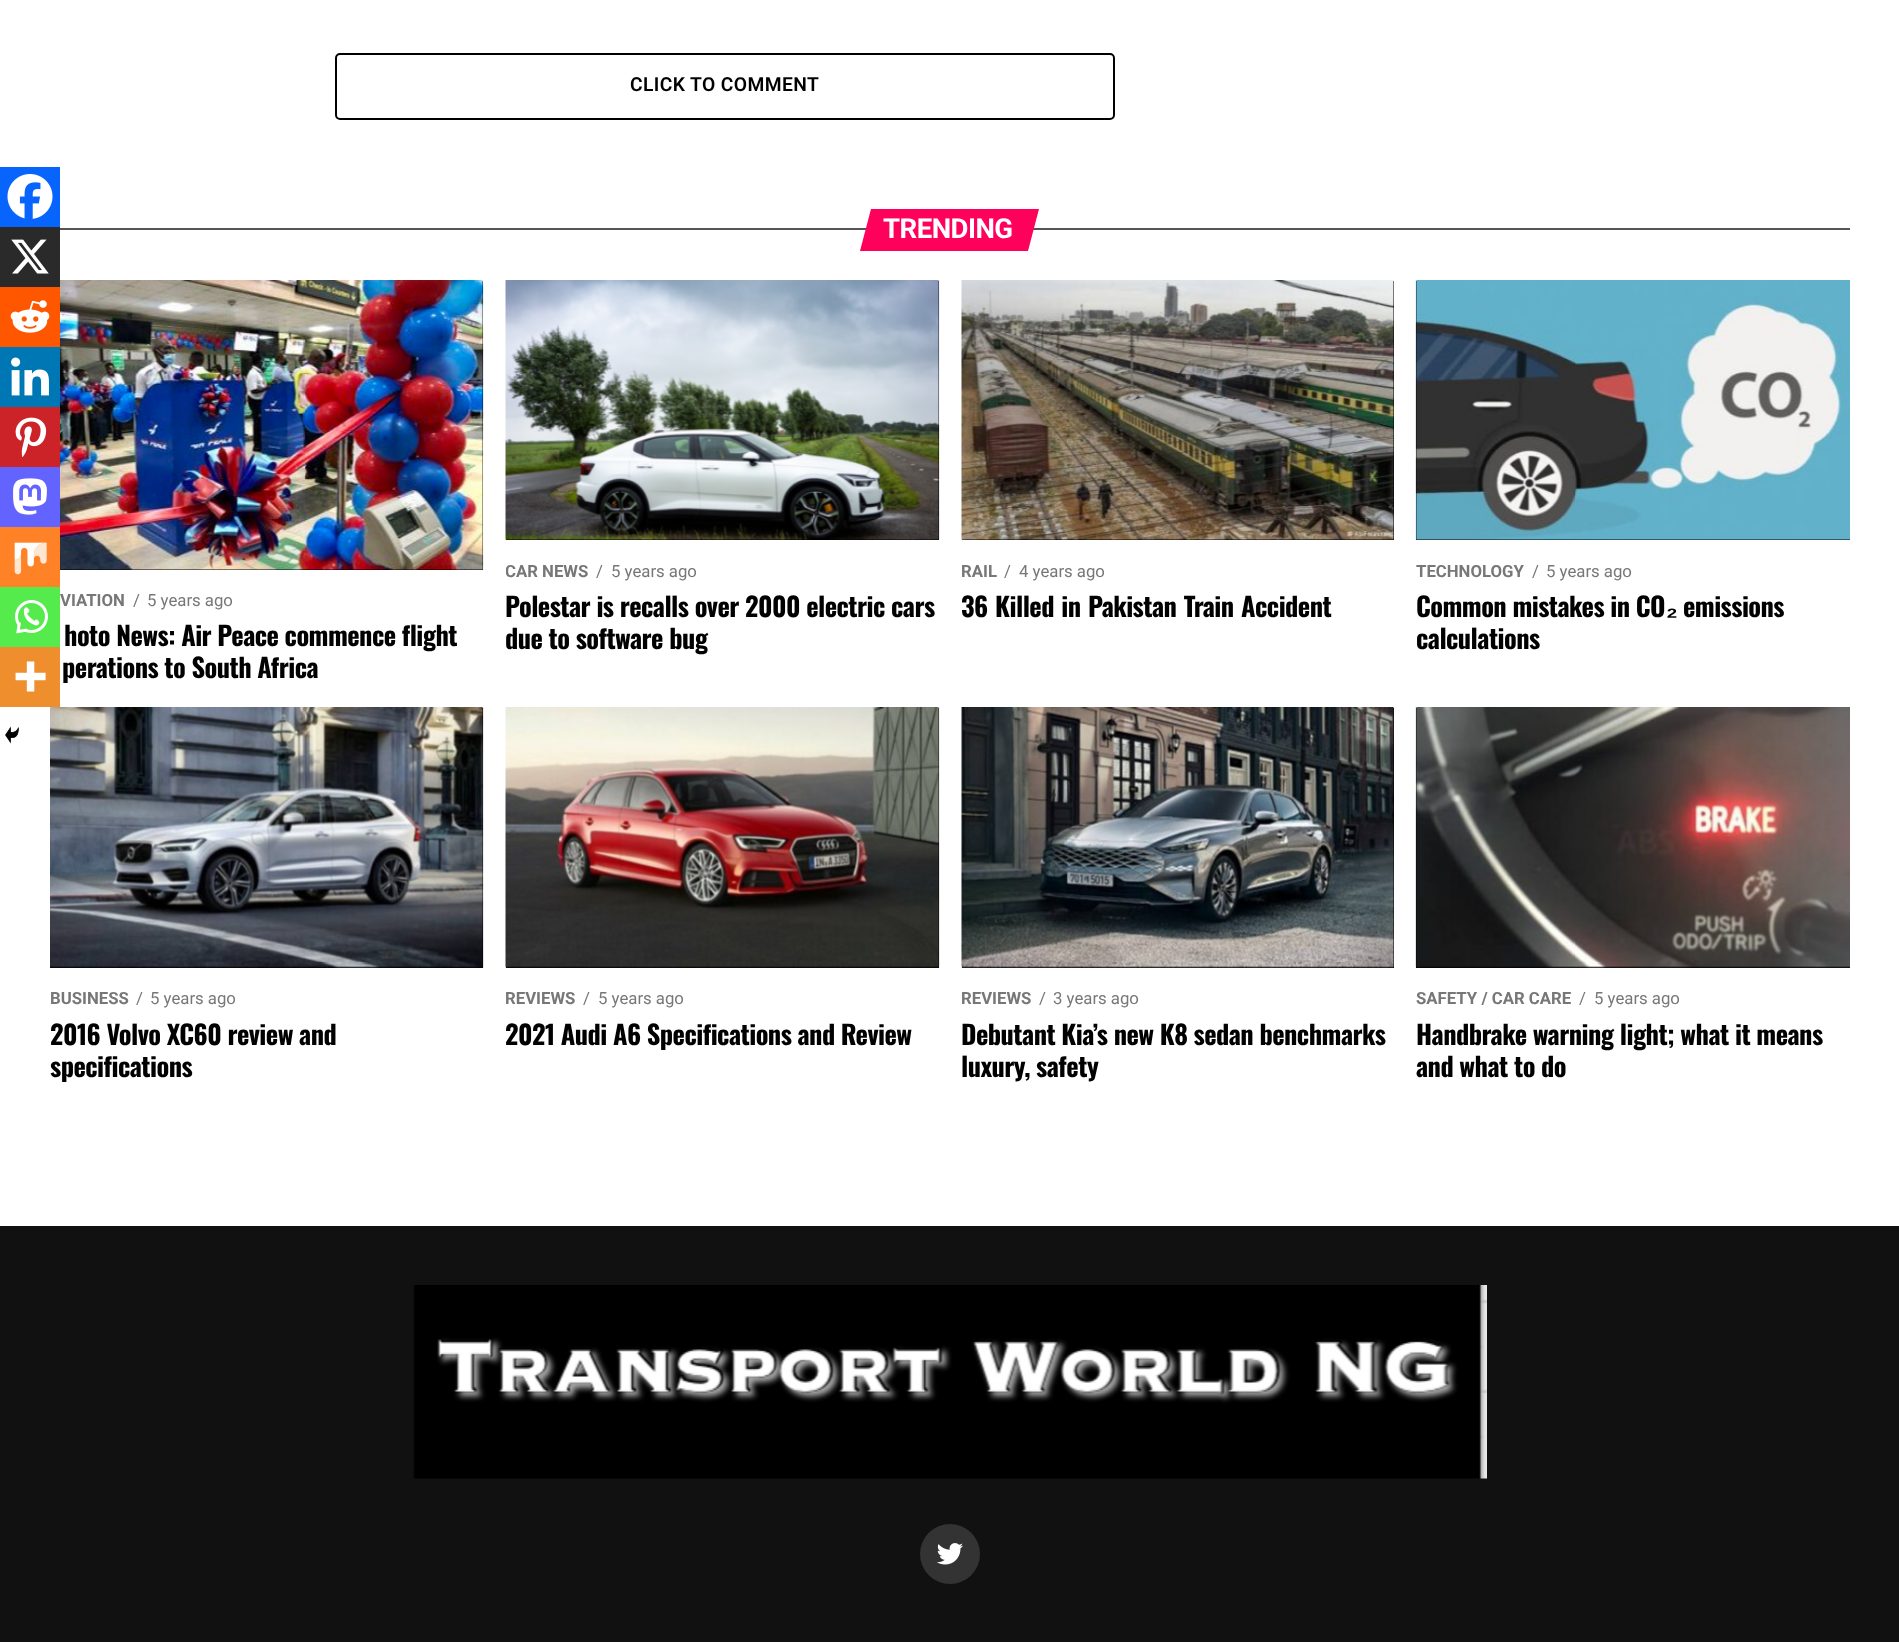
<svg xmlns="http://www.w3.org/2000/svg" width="1899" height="1642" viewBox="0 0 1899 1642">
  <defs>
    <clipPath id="clip1"><rect x="506" y="281" width="433" height="427"/></clipPath>
    <clipPath id="clip2"><rect x="962" y="281" width="432" height="427"/></clipPath>
    <clipPath id="clip3"><rect x="962" y="708" width="432" height="428"/></clipPath>
  </defs>
  <rect width="100%" height="100%" fill="#ffffff"/>
  <rect x="336" y="54" width="778" height="65" rx="4" fill="none" stroke="#000000" stroke-width="2"/>
  <text x="630" y="91" font-family="Roboto" font-size="19.25" font-weight="600" letter-spacing="0.4" fill="#000000">CLICK TO COMMENT</text>
  <rect x="0" y="167" width="60" height="60" fill="#0765fe"/>
  <image x="7" y="174" width="46" height="45" href="img1.png"/>
  <rect x="0" y="227" width="60" height="60" fill="#2a2a2a"/>
  <image x="11" y="239" width="38" height="35" href="img2.png"/>
  <rect x="0" y="287" width="60" height="60" fill="#ff5700"/>
  <image x="10" y="300" width="40" height="33" href="img3.png"/>
  <rect x="0" y="347" width="60" height="60" fill="#0077b5"/>
  <image x="11" y="357" width="38" height="39" href="img4.png"/>
  <rect x="0" y="407" width="60" height="60" fill="#cc2329"/>
  <image x="15" y="417" width="32" height="40" href="img5.png"/>
  <rect x="0" y="467" width="60" height="60" fill="#6364ff"/>
  <image x="13" y="478" width="34" height="37" href="img6.png"/>
  <rect x="0" y="527" width="60" height="60" fill="#ff8226"/>
  <image x="14" y="542" width="33" height="33" href="img7.png"/>
  <rect x="0" y="587" width="60" height="60" fill="#55eb4c"/>
  <image x="15" y="600" width="33" height="34" href="img8.png"/>
  <rect x="0" y="647" width="60" height="60" fill="#ee8e2d"/>
  <image x="15" y="661" width="31" height="31" href="img9.png"/>
  <image x="5" y="726" width="14" height="18" href="img10.png"/>
  <rect x="60" y="228" width="1790" height="2" fill="#555555"/>
  <path d="M871 209H1039L1028 251H860Z" fill="#ff005b"/>
  <text x="883" y="238" font-family="Roboto" font-size="27.5" font-weight="bold" letter-spacing="-0.5" fill="#ffffff">TRENDING</text>
  <rect x="60" y="281" width="423" height="289" fill="#000000"/>
  <image x="60" y="280" width="424" height="290" href="img11.png"/>
  <text x="60" y="606" font-family="Roboto" font-size="16.75" font-weight="bold" fill="#777777">VIATION</text>
  <text x="133" y="606" font-family="Roboto" font-size="16.75" fill="#777777">/</text>
  <text x="147" y="606" font-family="Roboto" font-size="16.75" fill="#777777">5 years ago</text>
  <text x="64" y="646" font-family="Oswald" font-size="26.4" font-weight="bold" letter-spacing="-0.55" fill="#000000">hoto News: Air Peace commence flight</text>
  <text x="62" y="678" font-family="Oswald" font-size="26.4" font-weight="bold" letter-spacing="-0.55" fill="#000000">perations to South Africa</text>
  <rect x="506" y="281" width="433" height="259" fill="#000000"/>
  <image x="505" y="280" width="435" height="260" href="img12.png"/>
  <g clip-path="url(#clip1)">
    <text x="505" y="577" font-family="Roboto" font-size="16.75" font-weight="bold" fill="#777777">CAR NEWS</text>
  </g>
  <text x="596" y="577" font-family="Roboto" font-size="16.75" fill="#777777">/</text>
  <text x="611" y="577" font-family="Roboto" font-size="16.75" fill="#777777">5 years ago</text>
  <text x="505" y="617" font-family="Oswald" font-size="26.4" font-weight="bold" letter-spacing="-0.55" fill="#000000">Polestar is recalls over 2000 electric cars</text>
  <text x="505" y="649" font-family="Oswald" font-size="26.4" font-weight="bold" letter-spacing="-0.55" fill="#000000">due to software bug</text>
  <rect x="962" y="281" width="432" height="259" fill="#000000"/>
  <image x="961" y="280" width="433" height="260" href="img13.png"/>
  <g clip-path="url(#clip2)">
    <text x="961" y="577" font-family="Roboto" font-size="16.75" font-weight="bold" fill="#777777">RAIL</text>
  </g>
  <text x="1004" y="577" font-family="Roboto" font-size="16.75" fill="#777777">/</text>
  <text x="1019" y="577" font-family="Roboto" font-size="16.75" fill="#777777">4 years ago</text>
  <g clip-path="url(#clip2)">
    <text x="961" y="617" word-spacing="1.25" font-family="Oswald" font-size="26.4" font-weight="bold" letter-spacing="-0.55" fill="#000000">36 Killed in Pakistan Train Accident</text>
  </g>
  <rect x="1416" y="281" width="434" height="259" fill="#000000"/>
  <image x="1415" y="280" width="435" height="260" href="img14.png"/>
  <text x="1416" y="577" font-family="Roboto" font-size="16.75" font-weight="bold" fill="#777777">TECHNOLOGY</text>
  <text x="1532" y="577" font-family="Roboto" font-size="16.75" fill="#777777">/</text>
  <text x="1546" y="577" font-family="Roboto" font-size="16.75" fill="#777777">5 years ago</text>
  <text x="1416" y="617" font-family="Oswald" font-size="26.4" font-weight="bold" letter-spacing="-0.55" fill="#000000">Common mistakes in CO</text>
  <text x="1666" y="617" font-family="Liberation Sans" font-size="26.4" font-weight="bold" letter-spacing="-0.55" fill="#000000">₂</text>
  <text x="1683" y="617" font-family="Oswald" font-size="26.4" font-weight="bold" letter-spacing="-0.55" fill="#000000">emissions</text>
  <text x="1416" y="649" font-family="Oswald" font-size="26.4" font-weight="bold" letter-spacing="-0.55" fill="#000000">calculations</text>
  <rect x="50" y="708" width="433" height="260" fill="#000000"/>
  <image x="50" y="707" width="434" height="261" href="img15.png"/>
  <text x="50" y="1004" font-family="Roboto" font-size="16.75" font-weight="bold" fill="#777777">BUSINESS</text>
  <text x="136" y="1004" font-family="Roboto" font-size="16.75" fill="#777777">/</text>
  <text x="150" y="1004" font-family="Roboto" font-size="16.75" fill="#777777">5 years ago</text>
  <text x="50" y="1045" font-family="Oswald" font-size="26.4" font-weight="bold" letter-spacing="-0.55" fill="#000000">2016 Volvo XC60 review and</text>
  <text x="50" y="1077" font-family="Oswald" font-size="26.4" font-weight="bold" letter-spacing="-0.55" fill="#000000">specifications</text>
  <rect x="506" y="708" width="433" height="260" fill="#000000"/>
  <image x="505" y="707" width="435" height="261" href="img16.png"/>
  <text x="505" y="1004" font-family="Roboto" font-size="16.75" font-weight="bold" fill="#777777">REVIEWS</text>
  <text x="583" y="1004" font-family="Roboto" font-size="16.75" fill="#777777">/</text>
  <text x="598" y="1004" font-family="Roboto" font-size="16.75" fill="#777777">5 years ago</text>
  <text x="505" y="1045" font-family="Oswald" font-size="26.4" font-weight="bold" letter-spacing="-0.55" fill="#000000">2021 Audi A6 Specifications and Review</text>
  <rect x="962" y="708" width="432" height="260" fill="#000000"/>
  <image x="961" y="707" width="433" height="261" href="img17.png"/>
  <g clip-path="url(#clip3)">
    <text x="961" y="1004" font-family="Roboto" font-size="16.75" font-weight="bold" fill="#777777">REVIEWS</text>
  </g>
  <text x="1039" y="1004" font-family="Roboto" font-size="16.75" fill="#777777">/</text>
  <text x="1053" y="1004" font-family="Roboto" font-size="16.75" fill="#777777">3 years ago</text>
  <text x="961" y="1045" font-family="Oswald" font-size="26.4" font-weight="bold" letter-spacing="-0.55" fill="#000000">Debutant Kia’s new K8 sedan benchmarks</text>
  <text x="961" y="1077" font-family="Oswald" font-size="26.4" font-weight="bold" letter-spacing="-0.55" fill="#000000">luxury, safety</text>
  <rect x="1416" y="708" width="434" height="260" fill="#000000"/>
  <image x="1415" y="707" width="435" height="261" href="img18.png"/>
  <text x="1416" y="1004" font-family="Roboto" font-size="16.75" font-weight="bold" fill="#777777">SAFETY / CAR CARE</text>
  <text x="1579" y="1004" font-family="Roboto" font-size="16.75" fill="#777777">/</text>
  <text x="1594" y="1004" font-family="Roboto" font-size="16.75" fill="#777777">5 years ago</text>
  <text x="1416" y="1045" font-family="Oswald" font-size="26.4" font-weight="bold" letter-spacing="-0.55" fill="#000000">Handbrake warning light; what it means</text>
  <text x="1416" y="1077" font-family="Oswald" font-size="26.4" font-weight="bold" letter-spacing="-0.55" fill="#000000">and what to do</text>
  <rect x="0" y="1226" width="1899" height="416" fill="#111111"/>
  <image x="413" y="1285" width="1074" height="194" href="img19.png"/>
  <circle cx="950" cy="1554" r="30" fill="#333333"/>
  <image x="937" y="1543" width="26" height="22" href="img20.png"/>
</svg>
